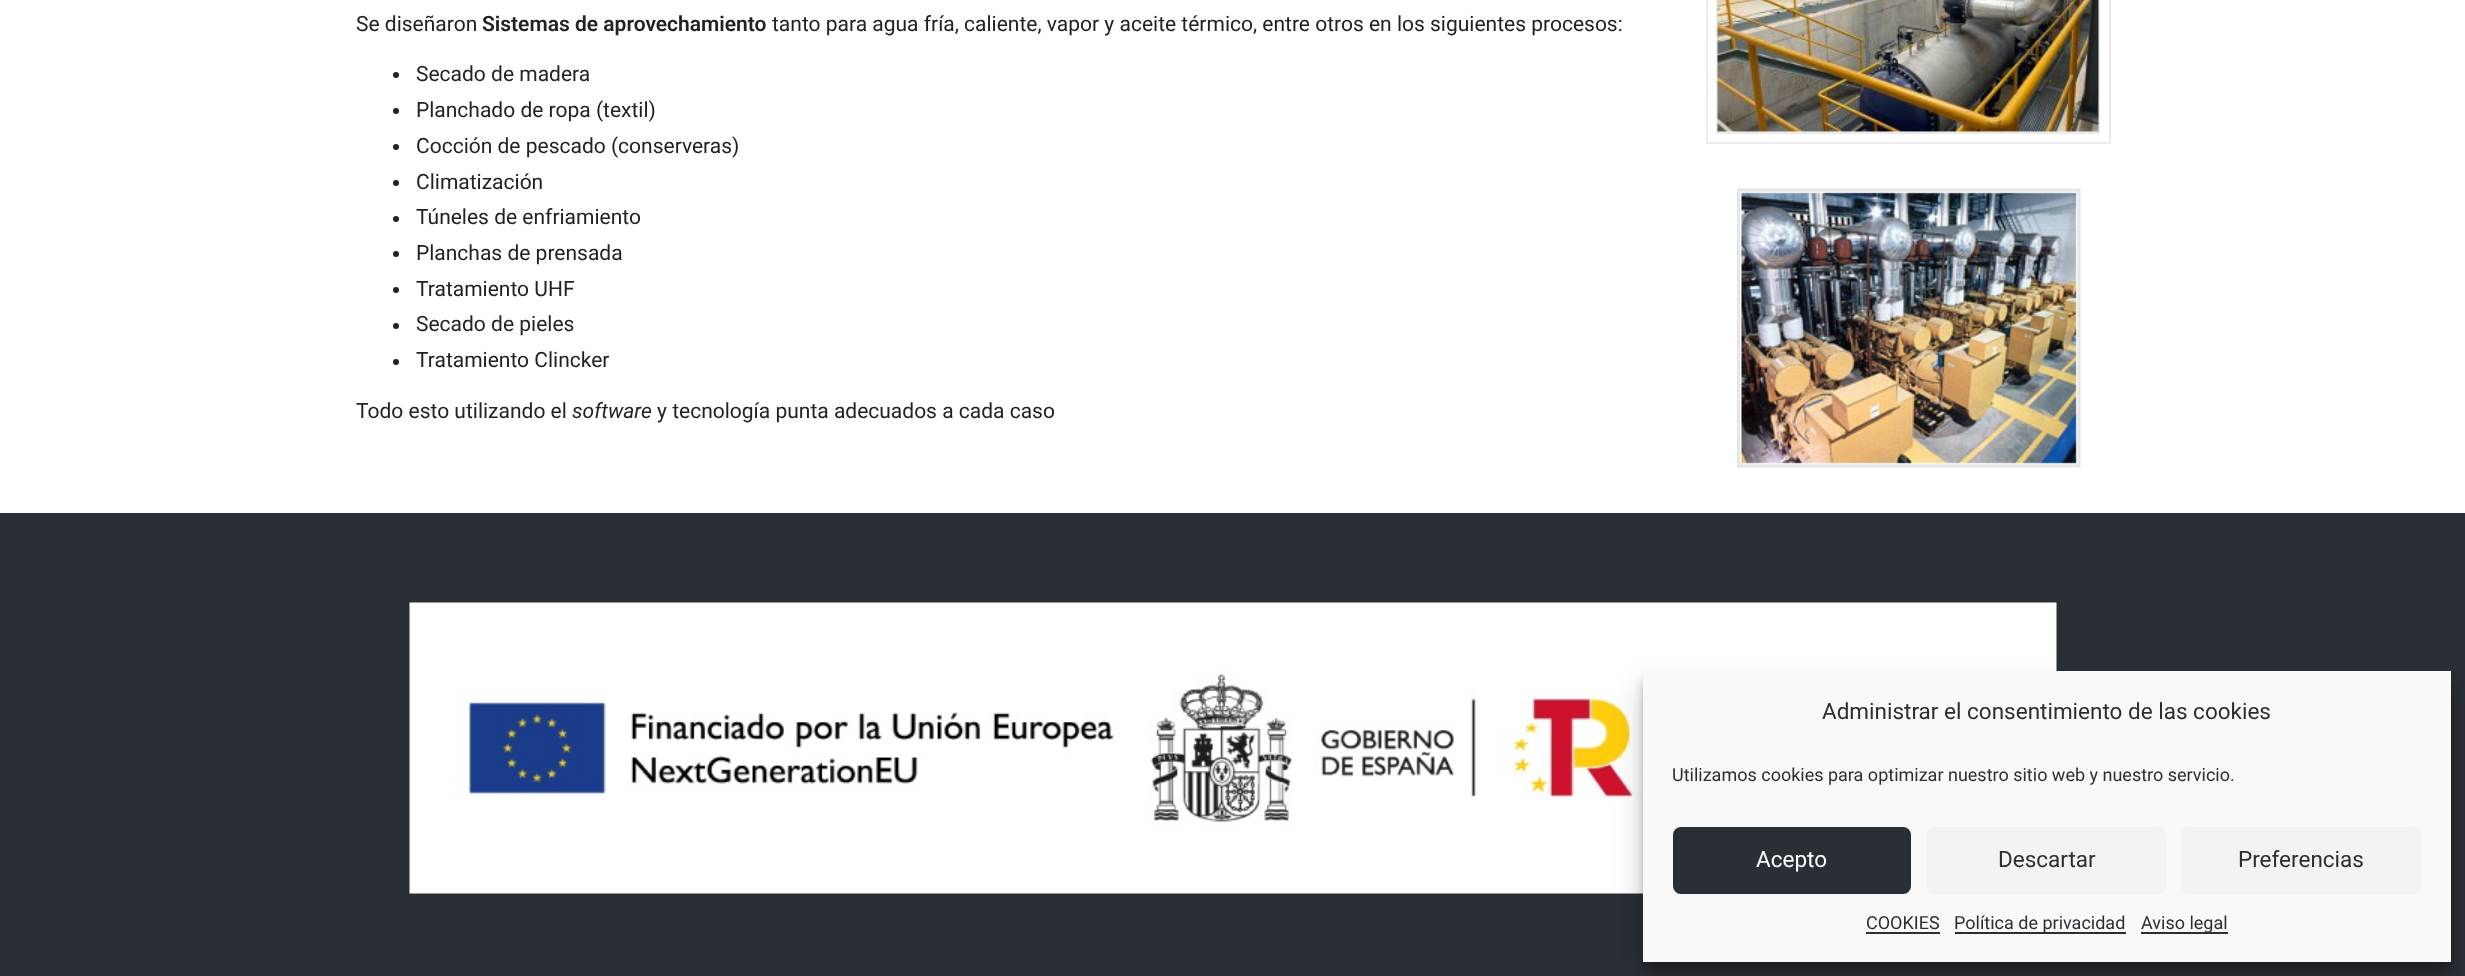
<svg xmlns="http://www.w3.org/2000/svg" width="2465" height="976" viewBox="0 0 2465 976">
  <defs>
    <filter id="blur1" x="-50%" y="-200%" width="200%" height="500%"><feGaussianBlur stdDeviation="4.5"/></filter>
    <filter id="blur2" x="-50%" y="-200%" width="200%" height="500%"><feGaussianBlur stdDeviation="15"/></filter>
  </defs>
  <rect width="100%" height="100%" fill="#ffffff"/>
  <text x="356" y="31" font-family="Roboto" font-size="21" fill="#222222">Se diseñaron</text>
  <text x="482" y="31" font-family="Roboto" font-size="21" font-weight="600" fill="#222222">Sistemas de aprovechamiento</text>
  <text x="772" y="31" font-family="Roboto" font-size="21" fill="#222222">tanto para agua fría, caliente, vapor y aceite térmico, entre otros en los siguientes procesos:</text>
  <circle cx="396" cy="75" r="3" fill="#222222"/>
  <text x="416" y="81" font-family="Roboto" font-size="21" fill="#222222">Secado de madera</text>
  <circle cx="396" cy="111" r="3" fill="#222222"/>
  <text x="416" y="117" font-family="Roboto" font-size="21" fill="#222222">Planchado de ropa (textil)</text>
  <circle cx="396" cy="147" r="3" fill="#222222"/>
  <text x="416" y="153" font-family="Roboto" font-size="21" fill="#222222">Cocción de pescado (conserveras)</text>
  <circle cx="396" cy="183" r="3" fill="#222222"/>
  <text x="416" y="189" font-family="Roboto" font-size="21" fill="#222222">Climatización</text>
  <circle cx="396" cy="219" r="3" fill="#222222"/>
  <text x="416" y="224" font-family="Roboto" font-size="21" fill="#222222">Túneles de enfriamiento</text>
  <circle cx="396" cy="254" r="3" fill="#222222"/>
  <text x="416" y="260" font-family="Roboto" font-size="21" fill="#222222">Planchas de prensada</text>
  <circle cx="396" cy="290" r="3" fill="#222222"/>
  <text x="416" y="296" font-family="Roboto" font-size="21" fill="#222222">Tratamiento UHF</text>
  <circle cx="396" cy="326" r="3" fill="#222222"/>
  <text x="416" y="331" font-family="Roboto" font-size="21" fill="#222222">Secado de pieles</text>
  <circle cx="396" cy="362" r="3" fill="#222222"/>
  <text x="416" y="367" font-family="Roboto" font-size="21" fill="#222222">Tratamiento Clincker</text>
  <text x="356" y="418" font-family="Roboto" font-size="21" fill="#222222">Todo esto utilizando el</text>
  <text x="572" y="418" font-family="Roboto" font-size="21" font-style="italic" fill="#222222">software</text>
  <text x="657" y="418" font-family="Roboto" font-size="21" fill="#222222">y tecnología punta adecuados a cada caso</text>
  <rect x="1707" y="-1" width="403" height="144" fill="none" stroke="#ebebeb" stroke-width="2"/>
  <rect x="1717" y="-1" width="382" height="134" fill="none" stroke="#ebebeb" stroke-width="2"/>
  <image x="1717" y="0" width="382" height="132" href="img1.png"/>
  <image x="1737" y="188" width="344" height="280" href="img2.png"/>
  <rect x="0" y="513" width="2465" height="463" fill="#2a2f35"/>
  <image x="409" y="602" width="1648" height="292" href="img3.png"/>
  <rect x="1643" y="680" width="808" height="291" fill="#000000" fill-opacity="0.23" filter="url(#blur1)"/>
  <rect x="1643" y="686" width="808" height="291" fill="#000000" fill-opacity="0.19" filter="url(#blur2)"/>
  <rect x="1643" y="671" width="808" height="291" fill="#f9f9f9"/>
  <text x="1822" y="719" font-family="Roboto" font-size="22.5" fill="#2a2f35">Administrar el consentimiento de las cookies</text>
  <text x="1672" y="781" font-family="Roboto" font-size="18" fill="#2a2f35">Utilizamos cookies para optimizar nuestro sitio web y nuestro servicio.</text>
  <rect x="1674" y="828" width="236" height="65" rx="7" fill="#2a2f35" stroke="#2a2f35" stroke-width="2"/>
  <text x="1756" y="867" font-family="Roboto" font-size="22.5" fill="#ffffff">Acepto</text>
  <rect x="1926" y="827" width="240" height="67" rx="8" fill="#f3f3f3"/>
  <text x="1998" y="867" font-family="Roboto" font-size="22.5" fill="#2a2f35">Descartar</text>
  <rect x="2181" y="827" width="240" height="67" rx="8" fill="#f3f3f3"/>
  <text x="2238" y="867" font-family="Roboto" font-size="22.5" fill="#2a2f35">Preferencias</text>
  <text x="1866" y="929" font-family="Roboto" font-size="18" fill="#2a2f35">COOKIES</text>
  <rect x="1866" y="932" width="74" height="2" fill="#2a2f35"/>
  <rect x="1955" y="932" width="171" height="2" fill="#2a2f35"/>
  <text x="1954" y="929" font-family="Roboto" font-size="18" fill="#2a2f35">Política de privacidad</text>
  <rect x="2141" y="932" width="87" height="2" fill="#2a2f35"/>
  <text x="2141" y="929" font-family="Roboto" font-size="18" fill="#2a2f35">Aviso legal</text>
</svg>
